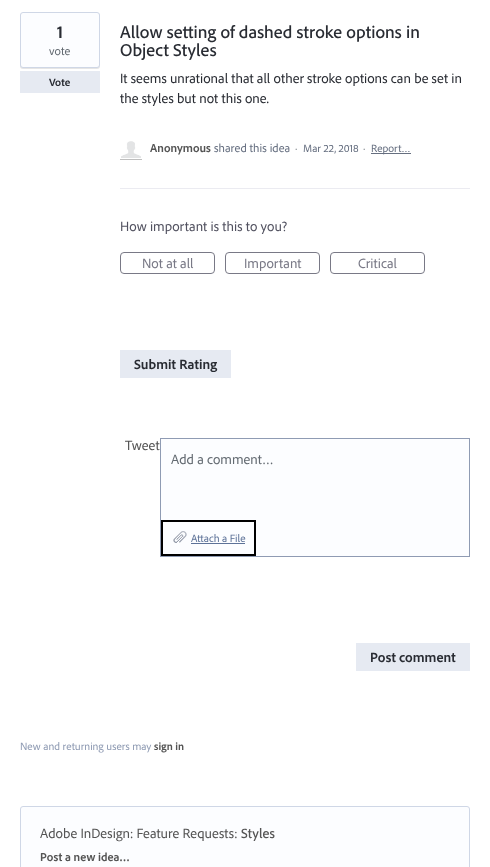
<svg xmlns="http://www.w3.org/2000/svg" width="490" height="867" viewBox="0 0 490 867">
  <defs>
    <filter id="blur1" x="-50%" y="-200%" width="200%" height="500%"><feGaussianBlur stdDeviation="0.5"/></filter>
    <clipPath id="clip1"><path d="M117 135H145V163H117ZM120 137H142V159H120Z" clip-rule="evenodd"/></clipPath>
  </defs>
  <rect width="100%" height="100%" fill="#ffffff"/>
  <rect x="20" y="13" width="80" height="56" rx="3" fill="#000000" fill-opacity="0.1" filter="url(#blur1)"/>
  <rect x="20.5" y="12.5" width="79" height="55" rx="2.5" fill="#fcfdff" stroke="#cfd7e6"/>
  <text x="57" y="38" font-family="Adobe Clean" font-size="18" font-weight="bold" fill="#292c33">1</text>
  <text x="49" y="55" font-family="Adobe Clean" font-size="12" fill="#646b72">vote</text>
  <rect x="20" y="71" width="80" height="22" fill="#e6eaf2"/>
  <text x="49" y="86" font-family="Adobe Clean" font-size="11" font-weight="bold" fill="#292c33">Vote</text>
  <text x="120" y="38" font-family="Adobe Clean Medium" font-size="18" font-weight="500" fill="#292c33">Allow setting of dashed stroke options in</text>
  <text x="120" y="56" font-family="Adobe Clean Medium" font-size="18" font-weight="500" fill="#292c33">Object Styles</text>
  <text x="120" y="83" font-family="Adobe Clean" font-size="14" fill="#292c33">It seems unrational that all other stroke options can be set in</text>
  <text x="120" y="103" font-family="Adobe Clean" font-size="14" fill="#292c33">the styles but not this one.</text>
  <g clip-path="url(#clip1)">
    <rect x="120" y="138" width="22" height="22" fill="#000000" fill-opacity="0.25" filter="url(#blur1)"/>
  </g>
  <image x="121" y="141" width="20" height="17" href="img1.png"/>
  <text x="150" y="152" font-family="Adobe Clean" font-size="12" font-weight="bold" fill="#545454">Anonymous</text>
  <text x="214" y="152" font-family="Adobe Clean" font-size="12" fill="#666f80">shared this idea</text>
  <text x="295" y="152" font-family="Adobe Clean" font-size="11" fill="#646b72">·</text>
  <text x="303" y="152" font-family="Adobe Clean" font-size="11" fill="#666f80">Mar 22, 2018</text>
  <text x="363" y="152" font-family="Adobe Clean" font-size="11" fill="#646b72">·</text>
  <rect x="371" y="153" width="40" height="1" fill="#666f80"/>
  <text x="371" y="152" font-family="Adobe Clean" font-size="11" fill="#666f80">Report…</text>
  <rect x="120" y="188" width="350" height="1" fill="#ebebf1"/>
  <text x="120" y="231" font-family="Adobe Clean" font-size="14" fill="#525260">How important is this to you?</text>
  <rect x="120.5" y="252.5" width="94" height="21" rx="3.5" fill="none" stroke="#797986"/>
  <text x="142" y="268" font-family="Adobe Clean" font-size="14" fill="#797986">Not at all</text>
  <rect x="225.5" y="252.5" width="94" height="21" rx="3.5" fill="none" stroke="#797986"/>
  <text x="244" y="268" font-family="Adobe Clean" font-size="14" fill="#797986">Important</text>
  <rect x="330.5" y="252.5" width="94" height="21" rx="3.5" fill="none" stroke="#797986"/>
  <text x="358" y="268" font-family="Adobe Clean" font-size="14" fill="#797986">Critical</text>
  <rect x="120" y="350" width="111" height="28" fill="#e6eaf2"/>
  <text x="134" y="369" font-family="Adobe Clean" font-size="14" font-weight="bold" fill="#292c33">Submit Rating</text>
  <text x="125" y="450" font-family="Adobe Clean" font-size="14" fill="#545454">Tweet</text>
  <rect x="160.5" y="438.5" width="309" height="118" fill="#fcfdff" stroke="#8f9bb3"/>
  <text x="171" y="464" font-family="Adobe Clean" font-size="14" fill="#646b72">Add a comment…</text>
  <image x="173" y="531" width="14" height="12" href="img2.png"/>
  <rect x="162" y="521" width="93" height="34" fill="none" stroke="#000000" stroke-width="2"/>
  <text x="191" y="542" font-family="Adobe Clean" font-size="11" fill="#5d7298">Attach a File</text>
  <rect x="191" y="543" width="54" height="1" fill="#5d7298"/>
  <rect x="356" y="643" width="114" height="28" fill="#e6eaf2"/>
  <text x="370" y="662" font-family="Adobe Clean" font-size="14" font-weight="bold" fill="#292c33">Post comment</text>
  <text x="20" y="750" font-family="Adobe Clean" font-size="11" fill="#8f9bb3">New and returning users may</text>
  <text x="154" y="750" font-family="Adobe Clean" font-size="11" font-weight="bold" fill="#545454">sign in</text>
  <rect x="20.5" y="806.5" width="449" height="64" rx="2.5" fill="#fcfdff" stroke="#cfd7e6"/>
  <text x="40" y="838" font-family="Adobe Clean" font-size="14" fill="#545454">Adobe InDesign: Feature Requests:</text>
  <text x="241" y="838" font-family="Adobe Clean Medium" font-size="14" font-weight="500" fill="#545454">Styles</text>
  <text x="40" y="861" font-family="Adobe Clean" font-size="12" font-weight="bold" fill="#545454">Post a new idea…</text>
</svg>
